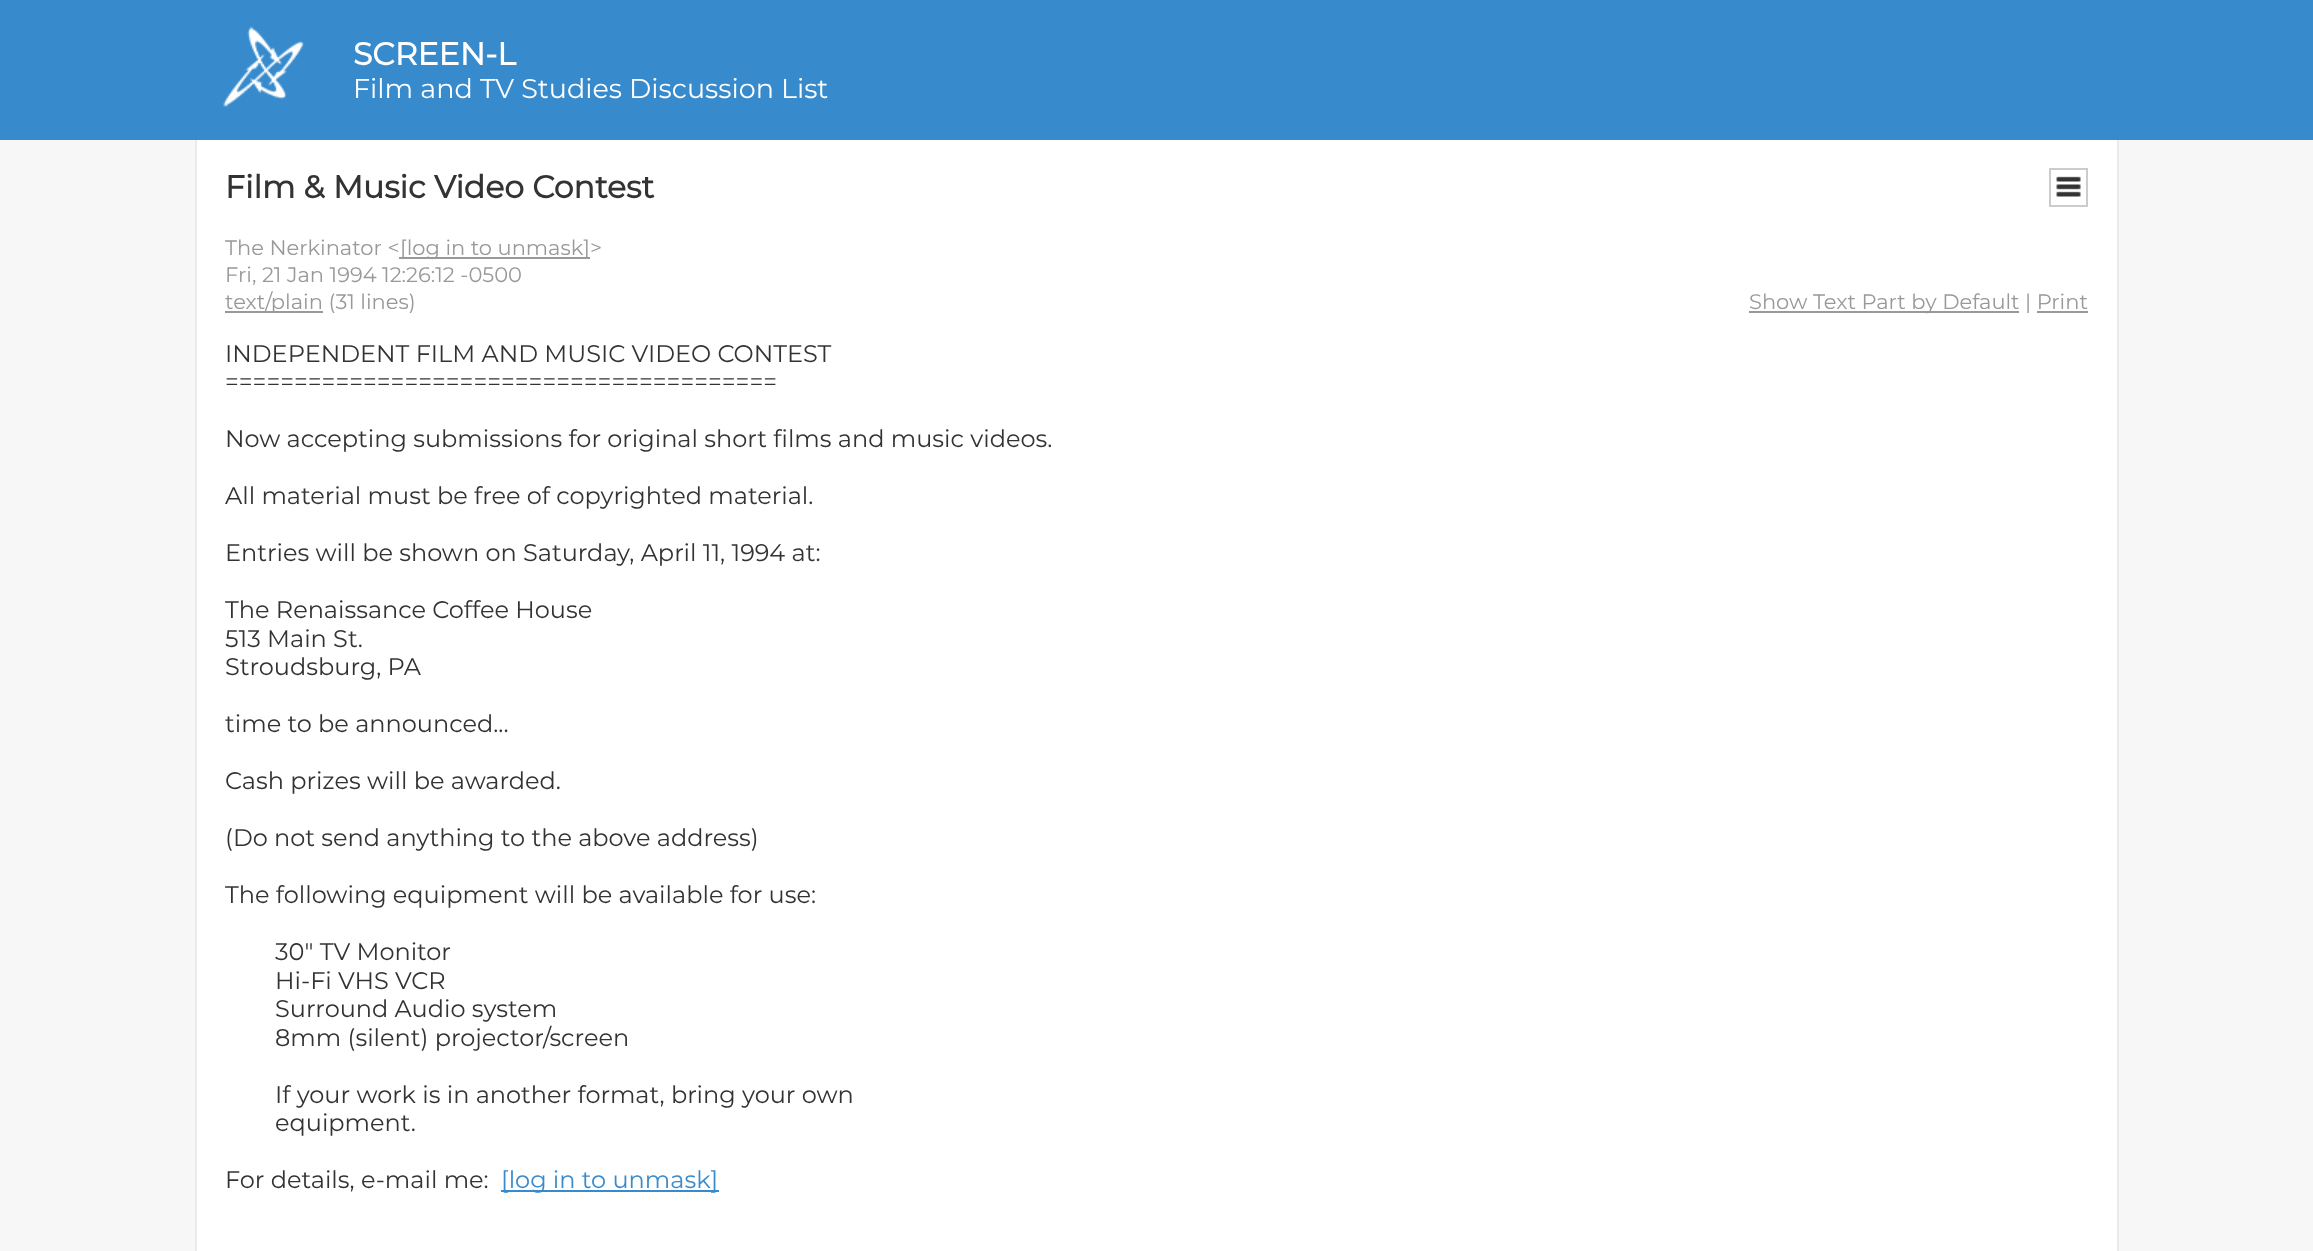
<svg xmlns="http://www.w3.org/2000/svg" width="2313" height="1251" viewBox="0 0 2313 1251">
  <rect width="100%" height="100%" fill="#f7f7f7"/>
  <rect x="0" y="0" width="2313" height="140" fill="#378acc"/>
  <image x="223" y="26" width="81" height="81" href="img1.png"/>
  <text x="353" y="65" font-family="Montserrat" font-size="31.5" font-weight="bold" fill="#ffffff">SCREEN-L</text>
  <text x="353" y="98" font-family="Montserrat" font-size="27" font-weight="100" fill="#ffffff">Film and TV Studies Discussion List</text>
  <rect x="197" y="140" width="1920" height="1111" fill="#ffffff"/>
  <rect x="2117" y="140" width="2" height="1111" fill="#eaeaea"/>
  <rect x="195" y="140" width="2" height="1111" fill="#eaeaea"/>
  <rect x="2050" y="169" width="37" height="37" fill="none" stroke="#cccccc" stroke-width="2"/>
  <image x="2056" y="176" width="25" height="21" href="img2.png"/>
  <text x="225" y="198" font-family="Montserrat" font-size="31.5" font-weight="bold" fill="#333333">Film &amp; Music Video Contest</text>
  <text x="225" y="255" font-family="Montserrat" font-size="21" font-weight="100" fill="#999999">The Nerkinator &lt;</text>
  <rect x="399" y="257" width="191" height="2" fill="#999999"/>
  <text x="400" y="255" font-family="Montserrat" font-size="21" font-weight="100" fill="#999999">[log in to unmask]&gt;</text>
  <text x="225" y="282" font-family="Montserrat" font-size="21" font-weight="100" fill="#999999">Fri, 21 Jan 1994 12:26:12 -0500</text>
  <rect x="225" y="311" width="98" height="2" fill="#999999"/>
  <text x="225" y="309" font-family="Montserrat" font-size="21" font-weight="100" fill="#999999">text/plain (31 lines)</text>
  <rect x="1749" y="311" width="270" height="2" fill="#999999"/>
  <text x="1749" y="309" font-family="Montserrat" font-size="21" font-weight="100" fill="#999999">Show Text Part by Default | Print</text>
  <rect x="2037" y="311" width="51" height="2" fill="#999999"/>
  <text x="225" y="362" font-family="Montserrat" font-size="24" font-weight="100" fill="#333333">INDEPENDENT FILM AND MUSIC VIDEO CONTEST</text>
  <text x="225" y="390" font-family="Montserrat" font-size="24" font-weight="100" fill="#333333">========================================</text>
  <text x="225" y="447" font-family="Montserrat" font-size="24" font-weight="100" fill="#333333">Now accepting submissions for original short films and music videos.</text>
  <text x="225" y="504" font-family="Montserrat" font-size="24" font-weight="100" fill="#333333">All material must be free of copyrighted material.</text>
  <text x="225" y="561" font-family="Montserrat" font-size="24" font-weight="100" fill="#333333">Entries will be shown on Saturday, April 11, 1994 at:</text>
  <text x="225" y="618" font-family="Montserrat" font-size="24" font-weight="100" fill="#333333">The Renaissance Coffee House</text>
  <text x="225" y="647" font-family="Montserrat" font-size="24" font-weight="100" fill="#333333">513 Main St.</text>
  <text x="225" y="675" font-family="Montserrat" font-size="24" font-weight="100" fill="#333333">Stroudsburg, PA</text>
  <text x="225" y="732" font-family="Montserrat" font-size="24" font-weight="100" fill="#333333">time to be announced...</text>
  <text x="225" y="789" font-family="Montserrat" font-size="24" font-weight="100" fill="#333333">Cash prizes will be awarded.</text>
  <text x="225" y="846" font-family="Montserrat" font-size="24" font-weight="100" fill="#333333">(Do not send anything to the above address)</text>
  <text x="225" y="903" font-family="Montserrat" font-size="24" font-weight="100" fill="#333333">The following equipment will be available for use:</text>
  <text x="275" y="960" font-family="Montserrat" font-size="24" font-weight="100" fill="#333333">30" TV Monitor</text>
  <text x="275" y="989" font-family="Montserrat" font-size="24" font-weight="100" fill="#333333">Hi-Fi VHS VCR</text>
  <text x="275" y="1017" font-family="Montserrat" font-size="24" font-weight="100" fill="#333333">Surround Audio system</text>
  <text x="275" y="1046" font-family="Montserrat" font-size="24" font-weight="100" fill="#333333">8mm (silent) projector/screen</text>
  <text x="275" y="1103" font-family="Montserrat" font-size="24" font-weight="100" fill="#333333">If your work is in another format, bring your own</text>
  <text x="275" y="1131" font-family="Montserrat" font-size="24" font-weight="100" fill="#333333">equipment.</text>
  <text x="225" y="1188" font-family="Montserrat" font-size="24" font-weight="100" fill="#333333">For details, e-mail me:</text>
  <rect x="501" y="1190" width="218" height="2" fill="#378acc"/>
  <text x="501" y="1188" font-family="Montserrat" font-size="24" font-weight="100" fill="#378acc">[log in to unmask]</text>
</svg>
